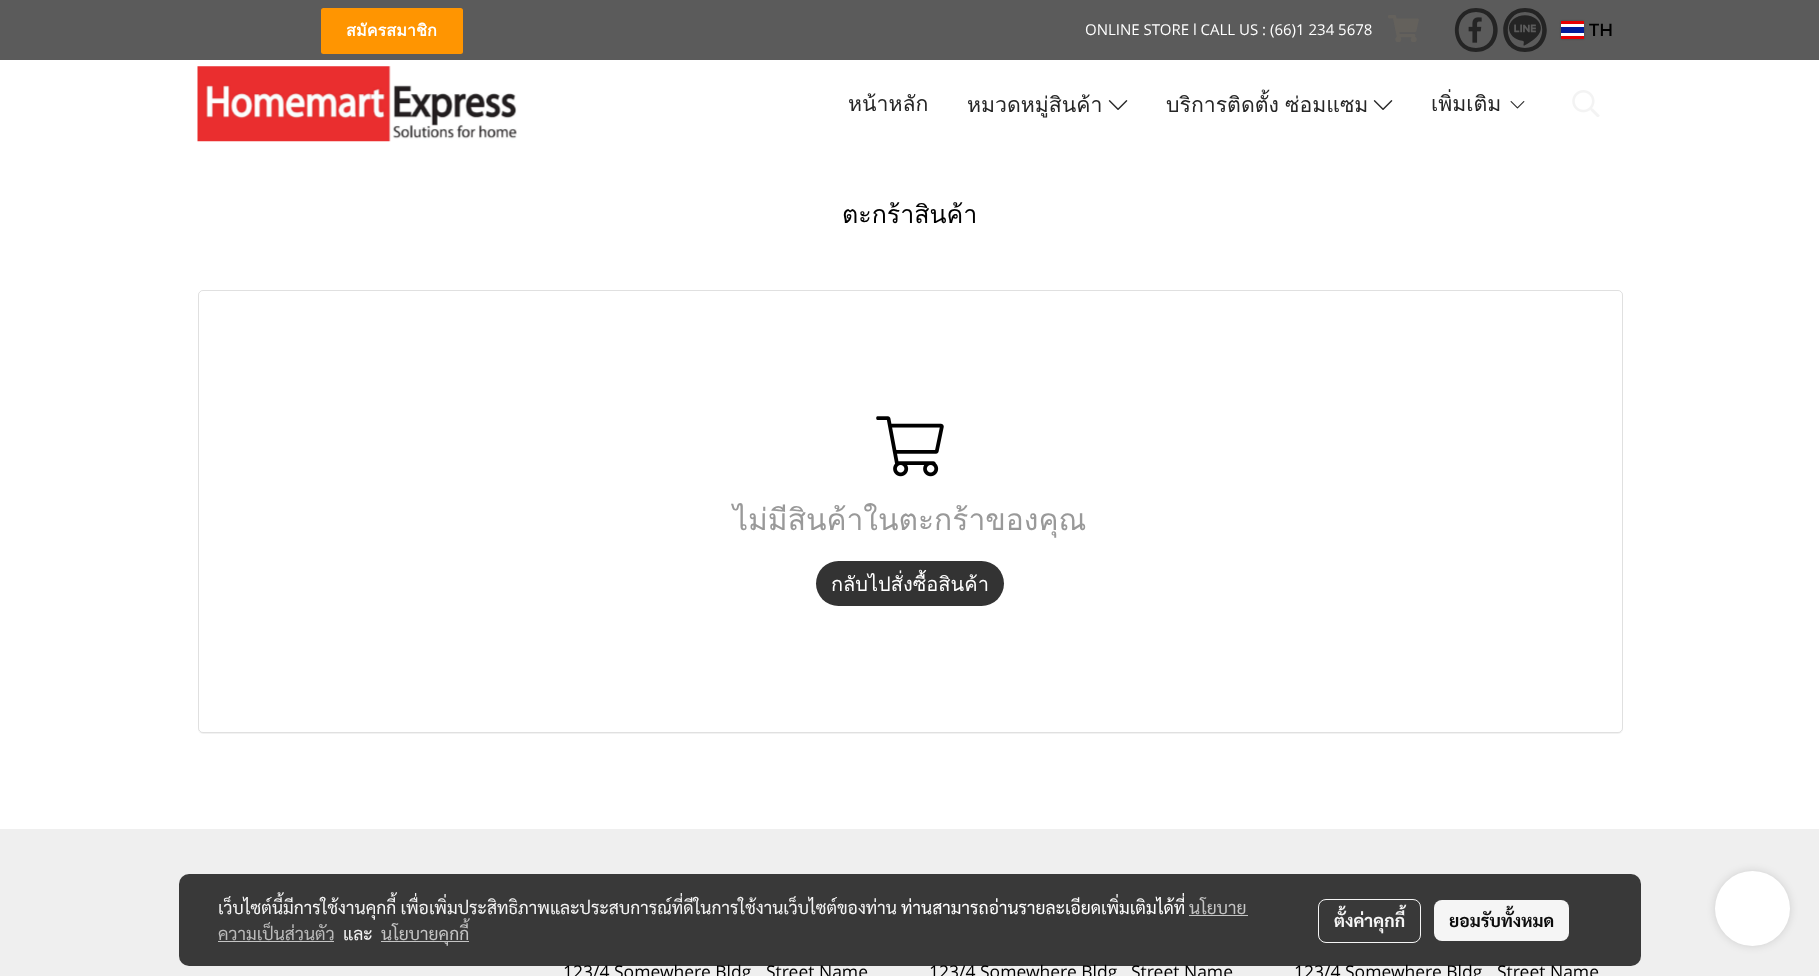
<svg xmlns="http://www.w3.org/2000/svg" width="1819" height="976" viewBox="0 0 1819 976">
  <defs>
    <filter id="blur1" x="-50%" y="-200%" width="200%" height="500%"><feGaussianBlur stdDeviation="1"/></filter>
    <filter id="blur2" x="-50%" y="-200%" width="200%" height="500%"><feGaussianBlur stdDeviation="0.5"/></filter>
    <filter id="blur3" x="-50%" y="-200%" width="200%" height="500%"><feGaussianBlur stdDeviation="4.5"/></filter>
  </defs>
  <rect width="100%" height="100%" fill="#ffffff"/>
  <rect x="0" y="0" width="1819" height="60" fill="#5b5b5b"/>
  <rect x="321" y="8" width="142" height="46" rx="2.5" fill="#ff9501"/>
  <text x="346" y="36" font-family="Loma" font-size="16.25" font-weight="bold" fill="#ffffff">สมัครสมาชิก</text>
  <text x="1085" y="35" font-family="Open Sans" font-size="15" fill="#ffffff">ONLINE STORE l CALL US : (66)1 234 5678</text>
  <image x="1388" y="15" width="31" height="27" href="img1.png"/>
  <path d="M1476 8C1448 8 1448 52 1476 52C1505 52 1505 8 1476 8ZM1476 48C1453 48 1453 12 1476 12C1499 12 1499 48 1476 48Z" fill="#242424"/>
  <image x="1468" y="17" width="14" height="26" href="img2.png"/>
  <path d="M1525 8C1496 8 1496 52 1525 52C1554 52 1554 8 1525 8ZM1525 48C1502 48 1502 12 1525 12C1548 12 1548 48 1525 48Z" fill="#242424"/>
  <image x="1509" y="15" width="32" height="31" href="img3.png"/>
  <rect x="1561" y="21" width="23" height="18" fill="#000000" fill-opacity="0.25" filter="url(#blur1)"/>
  <rect x="1561" y="24" width="23" height="12" fill="#ffffff"/>
  <rect x="1561" y="27" width="23" height="6" fill="#001b9a"/>
  <rect x="1561" y="21" width="23" height="3" fill="#e70000"/>
  <rect x="1561" y="36" width="23" height="3" fill="#e70000"/>
  <text x="1589" y="36" font-family="Montserrat" font-size="17.5" fill="#000000">TH</text>
  <image x="197" y="66" width="320" height="76" href="img4.png"/>
  <text x="848" y="111" font-family="Loma" font-size="21.25" fill="#262626">หน้าหลัก</text>
  <text x="967" y="112" font-family="Loma" font-size="21.25" fill="#262626">หมวดหมู่สินค้า</text>
  <image x="1108" y="100" width="20" height="10" href="img5.png"/>
  <text x="1166" y="112" word-spacing="-1" font-family="Loma" font-size="21.25" fill="#262626">บริการติดตั้ง ซ่อมแซม</text>
  <image x="1373" y="100" width="20" height="10" href="img5.png"/>
  <text x="1431" y="111" font-family="Loma" font-size="21.25" fill="#262626">เพิ่มเติม</text>
  <image x="1510" y="101" width="15" height="8" href="img6.png"/>
  <image x="1572" y="90" width="28" height="27" href="img7.png"/>
  <text x="842" y="223" font-family="Loma" font-size="25" fill="#000000">ตะกร้าสินค้า</text>
  <rect x="198" y="291" width="1425" height="443" rx="5" fill="#000000" fill-opacity="0.05" filter="url(#blur2)"/>
  <rect x="198" y="290" width="1425" height="443" rx="5" fill="#ffffff"/>
  <rect x="198.5" y="290.5" width="1424" height="442" rx="4.5" fill="none" stroke="#000000" stroke-opacity="0.12"/>
  <image x="876" y="416" width="68" height="61" href="img8.png"/>
  <text x="733" y="530" font-family="Loma" font-size="30" fill="#999999">ไม่มีสินค้าในตะกร้าของคุณ</text>
  <rect x="816" y="561" width="188" height="45" rx="22.5" fill="#333333"/>
  <text x="831" y="591" font-family="Loma" font-size="20" fill="#ffffff">กลับไปสั่งซื้อสินค้า</text>
  <rect x="0" y="829" width="1819" height="147" fill="#efefef"/>
  <text x="563" y="978" font-family="Open Sans" font-size="17.5" fill="#000000">123/4</text>
  <text x="614" y="978" font-family="Open Sans" font-size="17.5" fill="#000000">Somewhere Bldg</text>
  <text x="766" y="978" font-family="Open Sans" font-size="17.5" fill="#000000">Street Name</text>
  <text x="929" y="978" font-family="Open Sans" font-size="17.5" fill="#000000">123/4</text>
  <text x="980" y="978" font-family="Open Sans" font-size="17.5" fill="#000000">Somewhere Bldg</text>
  <text x="1131" y="978" font-family="Open Sans" font-size="17.5" fill="#000000">Street Name</text>
  <text x="1294" y="978" font-family="Open Sans" font-size="17.5" fill="#000000">123/4</text>
  <text x="1345" y="978" font-family="Open Sans" font-size="17.5" fill="#000000">Somewhere Bldg</text>
  <text x="1497" y="978" font-family="Open Sans" font-size="17.5" fill="#000000">Street Name</text>
  <rect x="1715" y="871" width="75" height="75" rx="37.5" fill="#000000" fill-opacity="0.14" filter="url(#blur3)"/>
  <circle cx="1752.5" cy="908.5" r="37.5" fill="#ffffff"/>
  <rect x="179" y="874" width="1462" height="92" rx="10" fill="#000000" fill-opacity="0.76"/>
  <text x="218" y="914" font-family="Sarabun" font-size="17.5" fill="#f5f5f5">เว็บไซต์นี้มีการใช้งานคุกกี้ เพื่อเพิ่มประสิทธิภาพและประสบการณ์ที่ดีในการใช้งานเว็บไซต์ของท่าน</text>
  <text x="901" y="914" font-family="Sarabun" font-size="17.5" fill="#ffffff">ท่านสามารถอ่านรายละเอียดเพิ่มเติมได้ที่</text>
  <text x="1189" y="914" font-family="Sarabun" font-size="17.5" fill="#c4c4c4">นโยบาย</text>
  <rect x="1189" y="915" width="59" height="1" fill="#c4c4c4"/>
  <text x="218" y="940" font-family="Sarabun" font-size="17.5" fill="#bbbbbb">ความเป็นส่วนตัว</text>
  <rect x="218" y="941" width="116" height="1" fill="#c4c4c4"/>
  <text x="343" y="940" font-family="Sarabun" font-size="17.5" fill="#f5f5f5">และ</text>
  <rect x="381" y="941" width="88" height="1" fill="#c4c4c4"/>
  <text x="381" y="940" font-family="Sarabun" font-size="17.5" fill="#c4c4c4">นโยบายคุกกี้</text>
  <rect x="1318.5" y="899.5" width="102" height="43" rx="7.5" fill="none" stroke="#ffffff" stroke-opacity="0.95"/>
  <text x="1334" y="927" font-family="Sarabun" font-size="17.5" font-weight="bold" fill="#f5f5f5">ตั้งค่าคุกกี้</text>
  <rect x="1434" y="900" width="135" height="41" rx="8" fill="#ffffff" fill-opacity="0.95"/>
  <text x="1449" y="927" font-family="Sarabun" font-size="17.5" font-weight="bold" fill="#0c0c0c">ยอมรับทั้งหมด</text>
</svg>
